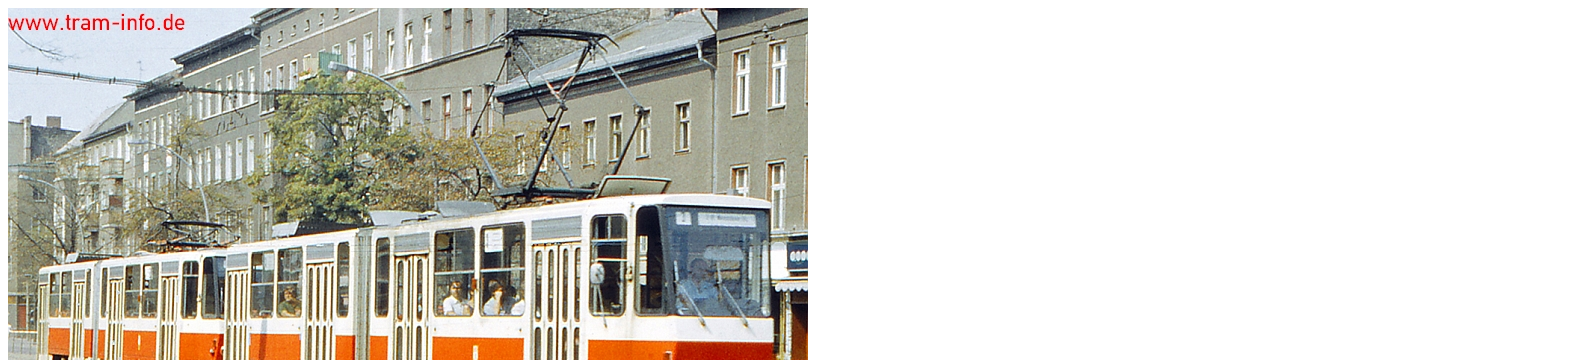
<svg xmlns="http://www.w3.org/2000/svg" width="1580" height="360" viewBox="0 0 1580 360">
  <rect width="100%" height="100%" fill="#ffffff"/>
  <image x="8" y="8" width="800" height="352" href="img1.png"/>
</svg>
